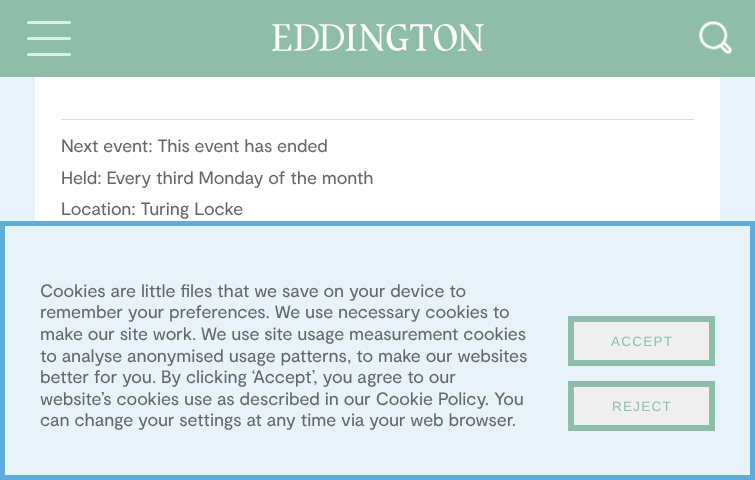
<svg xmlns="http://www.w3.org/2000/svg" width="755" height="480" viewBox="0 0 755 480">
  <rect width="100%" height="100%" fill="#e7f2f9"/>
  <rect x="0" y="0" width="755" height="77" fill="#8ebeaa"/>
  <rect x="27" y="21" width="44" height="3" rx="1.5" fill="#ddece6"/>
  <rect x="27" y="37" width="44" height="3" rx="1.5" fill="#ddece6"/>
  <rect x="27" y="53" width="44" height="3" rx="1.5" fill="#ddece6"/>
  <image x="272" y="24" width="212" height="27" href="img1.png"/>
  <image x="699" y="21" width="33" height="33" href="img2.png"/>
  <rect x="35" y="77" width="685" height="144" fill="#ffffff"/>
  <rect x="61" y="119" width="633" height="1" fill="#dcddde"/>
  <text x="61" y="152" font-family="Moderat" font-size="18" fill="#64666e">Next event: This event has ended</text>
  <text x="61" y="184" font-family="Moderat" font-size="18" fill="#64666e">Held: Every third Monday of the month</text>
  <text x="61" y="215" font-family="Moderat" font-size="18" fill="#64666e">Location: Turing Locke</text>
  <rect x="2.5" y="223.5" width="750" height="254" fill="none" stroke="#62acda" stroke-width="5"/>
  <text x="40" y="297" font-family="Moderat" font-size="18" fill="#64666e">Cookies are little files that we save on your device to</text>
  <text x="40" y="318" font-family="Moderat" font-size="18" fill="#64666e">remember your preferences. We use necessary cookies to</text>
  <text x="40" y="340" font-family="Moderat" font-size="18" fill="#64666e">make our site work. We use site usage measurement cookies</text>
  <text x="40" y="362" font-family="Moderat" font-size="18" fill="#64666e">to analyse anonymised usage patterns, to make our websites</text>
  <text x="40" y="383" font-family="Moderat" font-size="18" fill="#64666e">better for you. By clicking ‘Accept’, you agree to our</text>
  <text x="40" y="405" font-family="Moderat" font-size="18" fill="#64666e">website’s cookies use as described in our Cookie Policy. You</text>
  <text x="40" y="426" font-family="Moderat" font-size="18" fill="#64666e">can change your settings at any time via your web browser.</text>
  <rect x="571" y="319" width="141" height="44" fill="#efefef" stroke="#8ebeaa" stroke-width="6"/>
  <text x="611" y="346" font-family="Liberation Sans" font-size="13.5" letter-spacing="1.25" fill="#8ebeaa">ACCEPT</text>
  <rect x="571" y="384" width="141" height="44" fill="#efefef" stroke="#8ebeaa" stroke-width="6"/>
  <text x="612" y="411" font-family="Liberation Sans" font-size="13.5" letter-spacing="1.25" fill="#8ebeaa">REJECT</text>
</svg>
